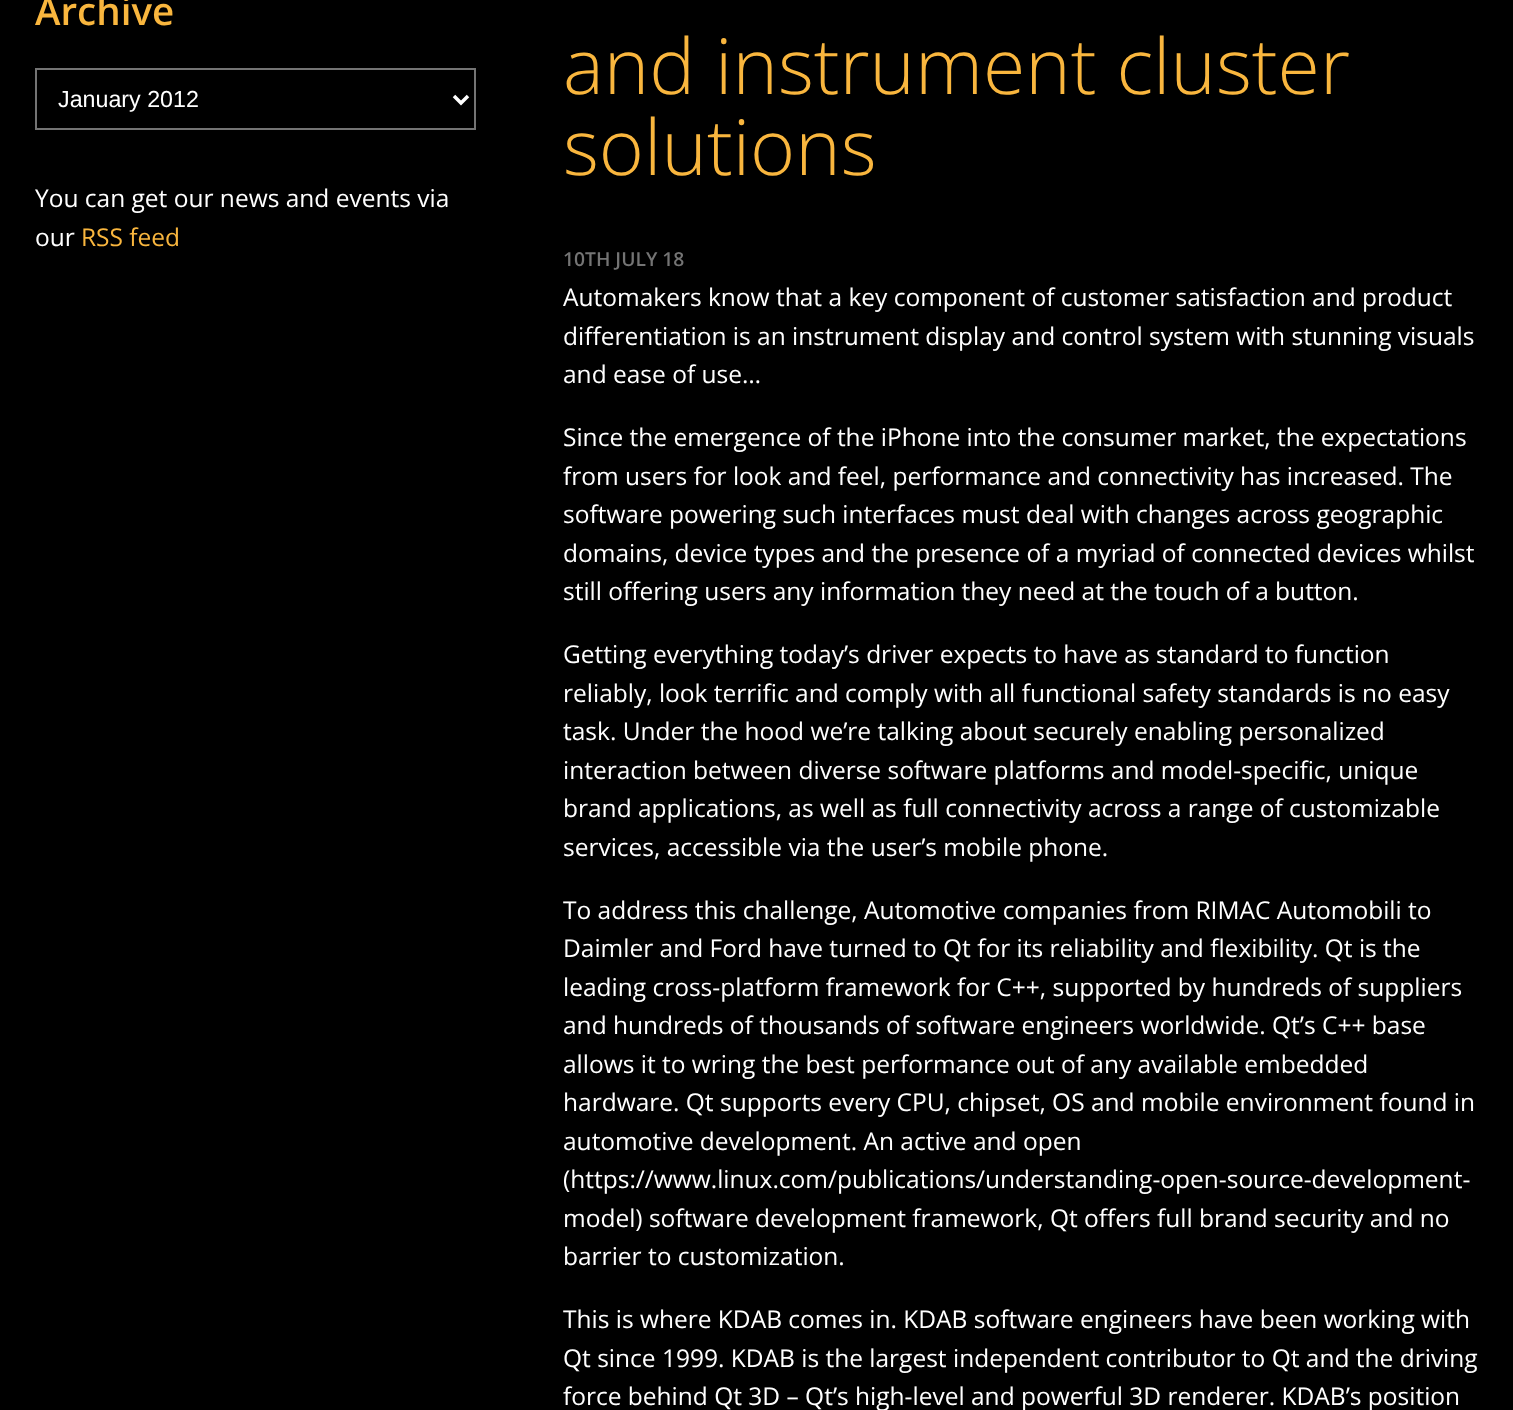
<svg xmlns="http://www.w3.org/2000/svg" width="1513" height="1410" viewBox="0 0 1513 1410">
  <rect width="100%" height="100%" fill="#000000"/>
  <text x="35" y="25" font-family="Open Sans" font-size="38.5" font-weight="600" fill="#f9b63e">Archive</text>
  <rect x="36" y="69" width="439" height="60" fill="none" stroke="#747474" stroke-width="2"/>
  <path d="M454 96L461 103L468 96" fill="none" stroke="#ffffff" stroke-width="3.5"/>
  <text x="58" y="107" font-family="Liberation Sans" font-size="23.25" fill="#ffffff">January 2012</text>
  <text x="35" y="207" font-family="Open Sans" font-size="24.5" fill="#ffffff">You can get our news and events via</text>
  <text x="35" y="246" font-family="Open Sans" font-size="24.5" fill="#ffffff">our</text>
  <text x="81" y="246" font-family="Open Sans" font-size="24.5" fill="#f9b63e">RSS feed</text>
  <text x="563" y="94" font-family="Open Sans" font-size="77" font-weight="300" fill="#f9b63e">and instrument cluster</text>
  <text x="563" y="175" font-family="Open Sans" font-size="77" font-weight="300" fill="#f9b63e">solutions</text>
  <text x="563" y="266" font-family="Open Sans" font-size="19.25" font-weight="600" fill="#747474">10TH JULY 18</text>
  <text x="563" y="306" font-family="Open Sans" font-size="24.5" fill="#ffffff">Automakers know that a key component of customer satisfaction and product</text>
  <text x="563" y="345" font-family="Open Sans" font-size="24.5" fill="#ffffff">differentiation is an instrument display and control system with stunning visuals</text>
  <text x="563" y="383" font-family="Open Sans" font-size="24.5" fill="#ffffff">and ease of use…</text>
  <text x="563" y="446" font-family="Open Sans" font-size="24.5" fill="#ffffff">Since the emergence of the iPhone into the consumer market, the expectations</text>
  <text x="563" y="485" font-family="Open Sans" font-size="24.5" fill="#ffffff">from users for look and feel, performance and connectivity has increased. The</text>
  <text x="563" y="523" font-family="Open Sans" font-size="24.5" fill="#ffffff">software powering such interfaces must deal with changes across geographic</text>
  <text x="563" y="562" font-family="Open Sans" font-size="24.5" fill="#ffffff">domains, device types and the presence of a myriad of connected devices whilst</text>
  <text x="563" y="600" font-family="Open Sans" font-size="24.5" fill="#ffffff">still offering users any information they need at the touch of a button.</text>
  <text x="563" y="663" font-family="Open Sans" font-size="24.5" fill="#ffffff">Getting everything today’s driver expects to have as standard to function</text>
  <text x="563" y="702" font-family="Open Sans" font-size="24.5" fill="#ffffff">reliably, look terrific and comply with all functional safety standards is no easy</text>
  <text x="563" y="740" font-family="Open Sans" font-size="24.5" fill="#ffffff">task. Under the hood we’re talking about securely enabling personalized</text>
  <text x="563" y="779" font-family="Open Sans" font-size="24.5" fill="#ffffff">interaction between diverse software platforms and model-specific, unique</text>
  <text x="563" y="817" font-family="Open Sans" font-size="24.5" fill="#ffffff">brand applications, as well as full connectivity across a range of customizable</text>
  <text x="563" y="856" font-family="Open Sans" font-size="24.5" fill="#ffffff">services, accessible via the user’s mobile phone.</text>
  <text x="563" y="919" font-family="Open Sans" font-size="24.5" fill="#ffffff">To address this challenge, Automotive companies from RIMAC Automobili to</text>
  <text x="563" y="957" font-family="Open Sans" font-size="24.5" fill="#ffffff">Daimler and Ford have turned to Qt for its reliability and flexibility. Qt is the</text>
  <text x="563" y="996" font-family="Open Sans" font-size="24.5" fill="#ffffff">leading cross-platform framework for C++, supported by hundreds of suppliers</text>
  <text x="563" y="1034" font-family="Open Sans" font-size="24.5" fill="#ffffff">and hundreds of thousands of software engineers worldwide. Qt’s C++ base</text>
  <text x="563" y="1073" font-family="Open Sans" font-size="24.5" fill="#ffffff">allows it to wring the best performance out of any available embedded</text>
  <text x="563" y="1111" font-family="Open Sans" font-size="24.5" fill="#ffffff">hardware. Qt supports every CPU, chipset, OS and mobile environment found in</text>
  <text x="563" y="1150" font-family="Open Sans" font-size="24.5" fill="#ffffff">automotive development. An active and open</text>
  <text x="563" y="1188" font-family="Open Sans" font-size="24.5" fill="#ffffff">(https://www.linux.com/publications/understanding-open-source-development-</text>
  <text x="563" y="1227" font-family="Open Sans" font-size="24.5" fill="#ffffff">model) software development framework, Qt offers full brand security and no</text>
  <text x="563" y="1265" font-family="Open Sans" font-size="24.5" fill="#ffffff">barrier to customization.</text>
  <text x="563" y="1328" font-family="Open Sans" font-size="24.5" fill="#ffffff">This is where KDAB comes in. KDAB software engineers have been working with</text>
  <text x="563" y="1367" font-family="Open Sans" font-size="24.5" fill="#ffffff">Qt since 1999. KDAB is the largest independent contributor to Qt and the driving</text>
  <text x="563" y="1405" font-family="Open Sans" font-size="24.5" fill="#ffffff">force behind Qt 3D – Qt’s high-level and powerful 3D renderer. KDAB’s position</text>
</svg>
